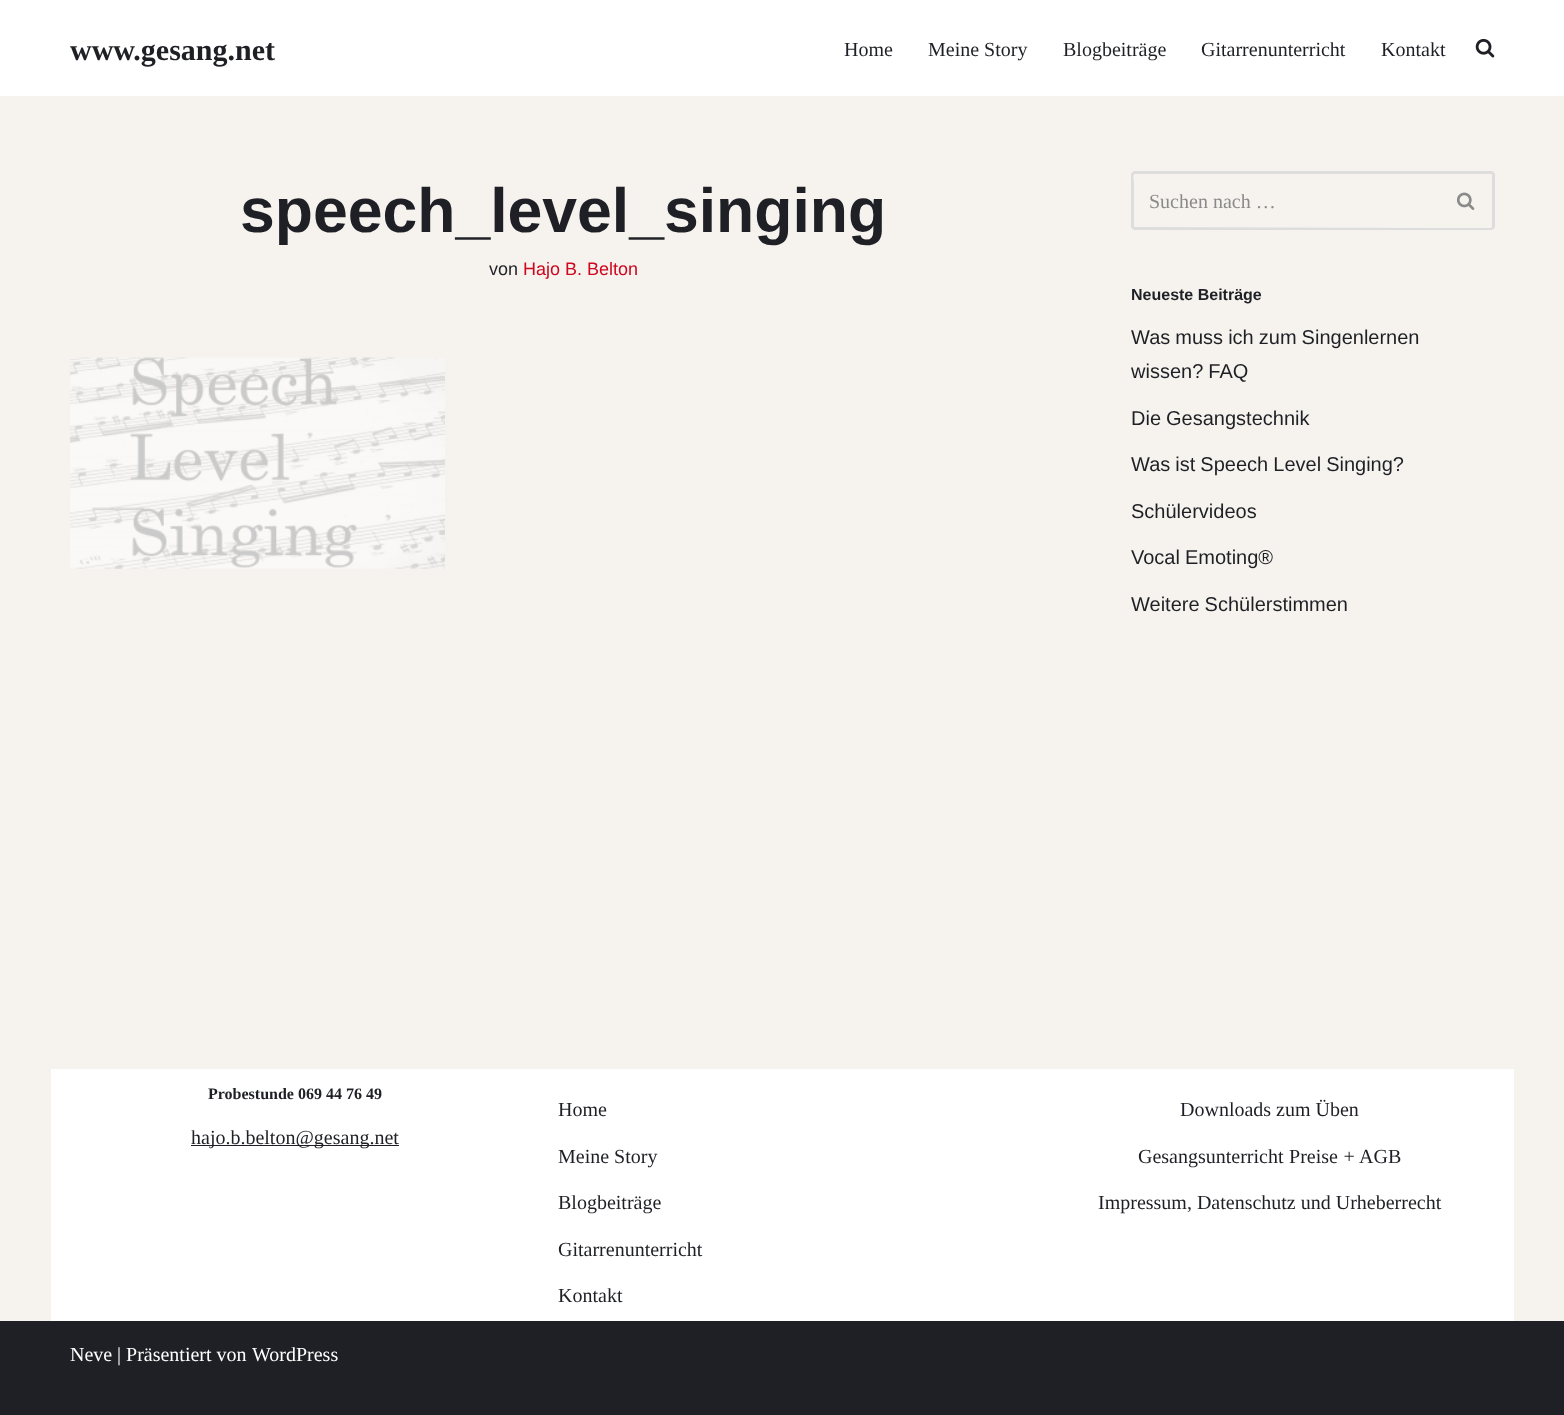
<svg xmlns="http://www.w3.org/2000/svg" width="1564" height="1415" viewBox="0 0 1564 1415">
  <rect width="100%" height="100%" fill="#f6f3ef"/>
  <rect x="0" y="0" width="1564" height="96" fill="#ffffff"/>
  <text x="70" y="60" font-family="Liberation Serif" font-size="30" font-weight="bold" fill="#1f2025">www.gesang.net</text>
  <text x="844" y="56" font-family="Liberation Serif" font-size="20" fill="#1f2025">Home</text>
  <text x="928" y="56" font-family="Liberation Serif" font-size="20" fill="#1f2025">Meine Story</text>
  <text x="1063" y="56" font-family="Liberation Serif" font-size="20" fill="#1f2025">Blogbeiträge</text>
  <text x="1201" y="56" font-family="Liberation Serif" font-size="20" fill="#1f2025">Gitarrenunterricht</text>
  <text x="1381" y="56" font-family="Liberation Serif" font-size="20" fill="#1f2025">Kontakt</text>
  <image x="1475" y="38" width="20" height="20" href="img1.png"/>
  <text x="240" y="232" font-family="Liberation Sans" font-size="62.5" font-weight="bold" fill="#1f2025">speech_level_singing</text>
  <text x="489" y="275" font-family="Liberation Sans" font-size="18" fill="#1f2025">von</text>
  <text x="523" y="275" font-family="Liberation Sans" font-size="18" fill="#ce061e">Hajo B. Belton</text>
  <image x="70" y="357" width="375" height="212" href="img2.png"/>
  <path d="M1135 171H1439V230H1135C1133 230 1131 228 1131 226V175C1131 173 1133 171 1135 171ZM1135 174H1439V228L1135 227H1134V184C1134 181 1132 174 1135 174Z" fill="#dddddd" fill-rule="evenodd"/>
  <text x="1149" y="208" font-family="Liberation Serif" font-size="20" fill="#8b8a8a">Suchen nach …</text>
  <path d="M1439 171H1491C1493 171 1495 173 1495 175V226C1495 228 1493 230 1491 230H1439ZM1439 174H1491C1492 174 1492 174 1492 175V226C1492 227 1492 228 1491 228H1439Z" fill="#dddddd" fill-rule="evenodd"/>
  <image x="1457" y="192" width="18" height="18" href="img3.png"/>
  <text x="1131" y="300" font-family="Liberation Sans" font-size="16" font-weight="bold" fill="#1f2025">Neueste Beiträge</text>
  <text x="1131" y="344" word-spacing="-0.5" font-family="Liberation Sans" font-size="20" fill="#1f2025">Was muss ich zum Singenlernen</text>
  <text x="1131" y="378" word-spacing="-0.5" font-family="Liberation Sans" font-size="20" fill="#1f2025">wissen? FAQ</text>
  <text x="1131" y="425" word-spacing="-0.5" font-family="Liberation Sans" font-size="20" fill="#1f2025">Die Gesangstechnik</text>
  <text x="1131" y="471" word-spacing="-0.5" font-family="Liberation Sans" font-size="20" fill="#1f2025">Was ist Speech Level Singing?</text>
  <text x="1131" y="518" font-family="Liberation Sans" font-size="20" fill="#1f2025">Schülervideos</text>
  <text x="1131" y="564" word-spacing="-0.5" font-family="Liberation Sans" font-size="20" fill="#1f2025">Vocal Emoting®</text>
  <text x="1131" y="611" word-spacing="-0.5" font-family="Liberation Sans" font-size="20" fill="#1f2025">Weitere Schülerstimmen</text>
  <rect x="51" y="1069" width="1463" height="252" fill="#ffffff"/>
  <text x="208" y="1099" font-family="Liberation Serif" font-size="16" font-weight="bold" fill="#1f2025">Probestunde 069 44 76 49</text>
  <rect x="191" y="1145" width="208" height="1" fill="#1f2025"/>
  <text x="191" y="1144" font-family="Liberation Serif" font-size="20" fill="#1f2025">hajo.b.belton@gesang.net</text>
  <text x="558" y="1116" font-family="Liberation Serif" font-size="20" fill="#1f2025">Home</text>
  <text x="558" y="1163" font-family="Liberation Serif" font-size="20" fill="#1f2025">Meine Story</text>
  <text x="558" y="1209" font-family="Liberation Serif" font-size="20" fill="#1f2025">Blogbeiträge</text>
  <text x="558" y="1256" font-family="Liberation Serif" font-size="20" fill="#1f2025">Gitarrenunterricht</text>
  <text x="558" y="1302" font-family="Liberation Serif" font-size="20" fill="#1f2025">Kontakt</text>
  <text x="1180" y="1116" font-family="Liberation Serif" font-size="20" fill="#1f2025">Downloads zum Üben</text>
  <text x="1138" y="1163" word-spacing="0.5" font-family="Liberation Serif" font-size="20" fill="#1f2025">Gesangsunterricht Preise + AGB</text>
  <text x="1098" y="1209" font-family="Liberation Serif" font-size="20" fill="#1f2025">Impressum, Datenschutz und Urheberrecht</text>
  <rect x="0" y="1321" width="1564" height="94" fill="#1f2025"/>
  <text x="70" y="1361" font-family="Liberation Serif" font-size="20" fill="#ffffff">Neve</text>
  <text x="117" y="1361" font-family="Liberation Serif" font-size="20" fill="#ffffff">| Präsentiert von</text>
  <text x="252" y="1361" font-family="Liberation Serif" font-size="20" fill="#ffffff">WordPress</text>
</svg>
